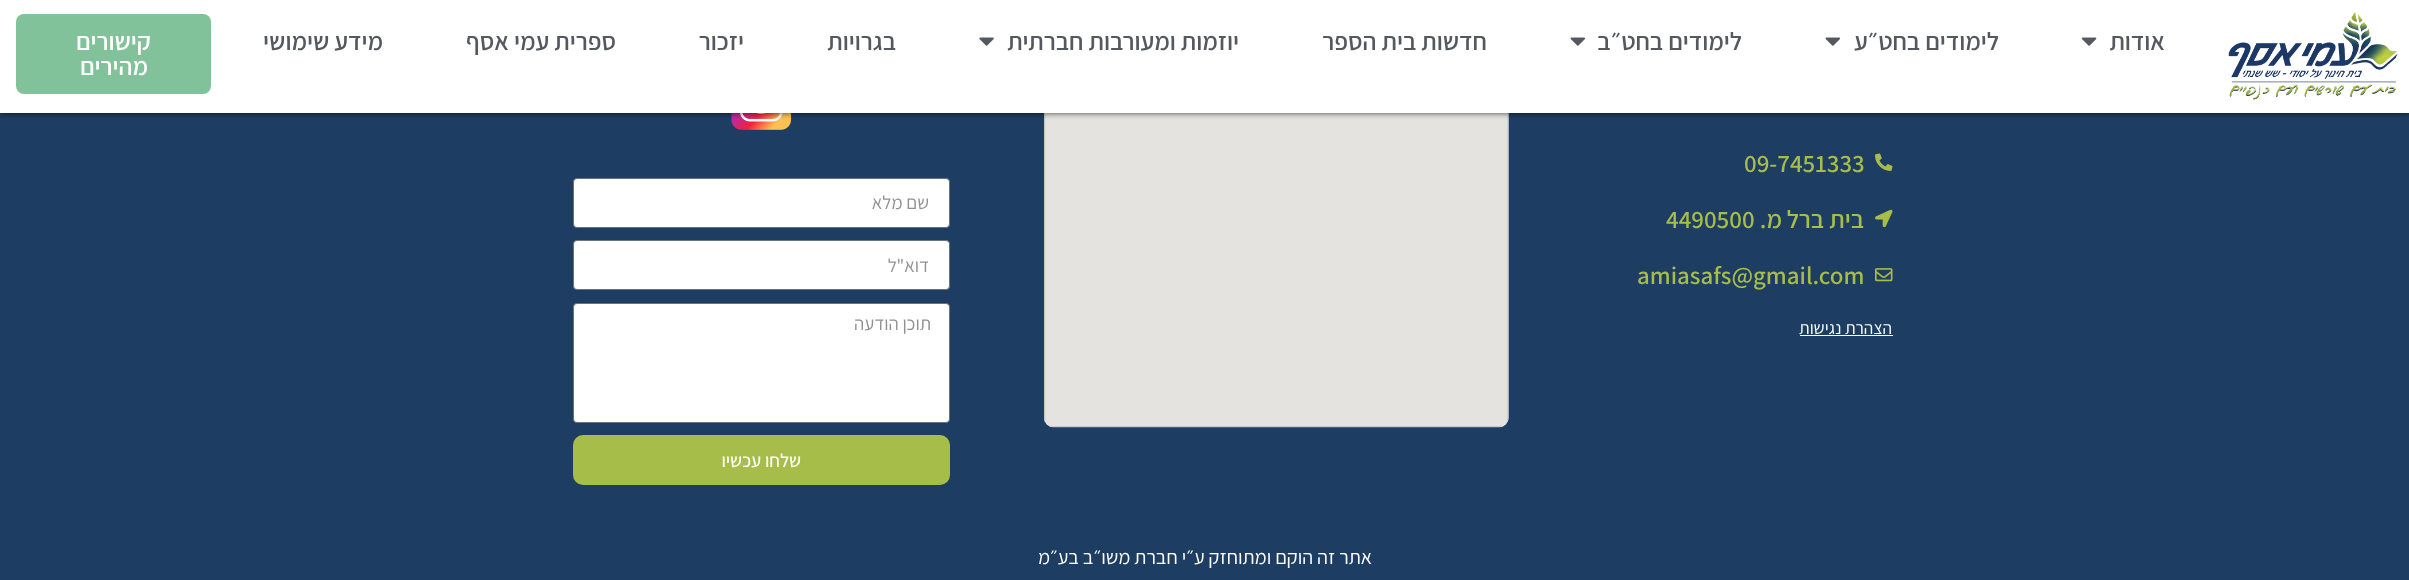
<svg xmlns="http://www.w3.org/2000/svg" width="2409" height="580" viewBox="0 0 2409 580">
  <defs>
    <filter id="blur1" x="-50%" y="-200%" width="200%" height="500%"><feGaussianBlur stdDeviation="3"/></filter>
  </defs>
  <rect width="100%" height="100%" fill="#1d3d62"/>
  <image x="1044" y="113" width="465" height="315" href="img8.png"/>
  <image x="731" y="113" width="61" height="17" href="img9.png"/>
  <rect x="0" y="0" width="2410" height="113" fill="#000000" fill-opacity="0.7" filter="url(#blur1)"/>
  <rect x="0" y="0" width="2409" height="113" fill="#ffffff"/>
  <image x="2228" y="12" width="170" height="88" href="img1.png"/>
  <text x="2165" y="50" font-family="Assistant" font-size="25" font-weight="600" direction="rtl" fill="#54595f">אודות</text>
  <image x="2081" y="37" width="16" height="9" href="img2.png"/>
  <text x="1999" y="50" font-family="Assistant" font-size="25" font-weight="600" direction="rtl" fill="#54595f">לימודים בחט״ע</text>
  <image x="1825" y="37" width="15" height="9" href="img3.png"/>
  <text x="1742" y="50" font-family="Assistant" font-size="25" font-weight="600" direction="rtl" fill="#54595f">לימודים בחט״ב</text>
  <image x="1570" y="37" width="15" height="9" href="img3.png"/>
  <text x="1487" y="50" font-family="Assistant" font-size="25" font-weight="600" direction="rtl" fill="#54595f">חדשות בית הספר</text>
  <text x="1239" y="50" font-family="Assistant" font-size="25" font-weight="600" direction="rtl" fill="#54595f">יוזמות ומעורבות חברתית</text>
  <image x="979" y="37" width="15" height="9" href="img4.png"/>
  <text x="896" y="50" font-family="Assistant" font-size="25" font-weight="600" direction="rtl" fill="#54595f">בגרויות</text>
  <text x="744" y="50" font-family="Assistant" font-size="25" font-weight="600" direction="rtl" fill="#54595f">יזכור</text>
  <text x="616" y="50" font-family="Assistant" font-size="25" font-weight="600" direction="rtl" fill="#54595f">ספרית עמי אסף</text>
  <text x="383" y="50" font-family="Assistant" font-size="25" font-weight="600" direction="rtl" fill="#54595f">מידע שימושי</text>
  <rect x="16" y="14" width="195" height="80" rx="8" fill="#82c29b"/>
  <text x="151" y="50" font-family="Assistant" font-size="25" font-weight="600" direction="rtl" fill="#ffffff">קישורים</text>
  <text x="148" y="75" font-family="Assistant" font-size="25" font-weight="600" direction="rtl" fill="#ffffff">מהירים</text>
  <image x="1875" y="153" width="18" height="18" href="img5.png"/>
  <text x="1744" y="172" font-family="Assistant" font-size="25" font-weight="600" fill="#a7bd49">09-7451333</text>
  <image x="1875" y="209" width="18" height="19" href="img6.png"/>
  <text x="1864" y="228" font-family="Assistant" font-size="25" font-weight="600" direction="rtl" fill="#a7bd49">בית ברל</text>
  <text x="1782" y="228" font-family="Assistant" font-size="25" font-weight="600" direction="rtl" fill="#a7bd49">מ.</text>
  <text x="1666" y="228" font-family="Assistant" font-size="25" font-weight="600" fill="#a7bd49">4490500</text>
  <image x="1875" y="268" width="18" height="14" href="img7.png"/>
  <text x="1637" y="284" font-family="Assistant" font-size="25" font-weight="600" fill="#a7bd49">amiasafs@gmail.com</text>
  <text x="1892" y="334" font-family="Assistant" font-size="17.5" direction="rtl" fill="#ffffff">הצהרת נגישות</text>
  <rect x="1800" y="335" width="93" height="1" fill="#ffffff"/>
  <rect x="573.5" y="178.5" width="376" height="49" rx="3.5" fill="#ffffff" stroke="#69727d"/>
  <text x="929" y="209" font-family="Assistant" font-size="18.75" direction="rtl" fill="#919191">שם מלא</text>
  <rect x="573.5" y="240.5" width="376" height="49" rx="3.5" fill="#ffffff" stroke="#69727d"/>
  <text x="929" y="272" font-family="Assistant" font-size="18.75" direction="rtl" fill="#919191">דוא"ל</text>
  <rect x="573.5" y="303.5" width="376" height="119" rx="3.5" fill="#ffffff" stroke="#69727d"/>
  <text x="931" y="330" font-family="Assistant" font-size="18.75" direction="rtl" fill="#919191">תוכן הודעה</text>
  <rect x="573" y="435" width="377" height="50" rx="10" fill="#a7bd49"/>
  <text x="801" y="467" font-family="Assistant" font-size="18.75" font-weight="500" direction="rtl" fill="#ffffff">שלחו עכשיו</text>
  <text x="1372" y="564" font-family="Assistant" font-size="20" direction="rtl" fill="#ffffff">אתר זה הוקם ומתוחזק ע״י חברת משו״ב בע״מ</text>
</svg>
